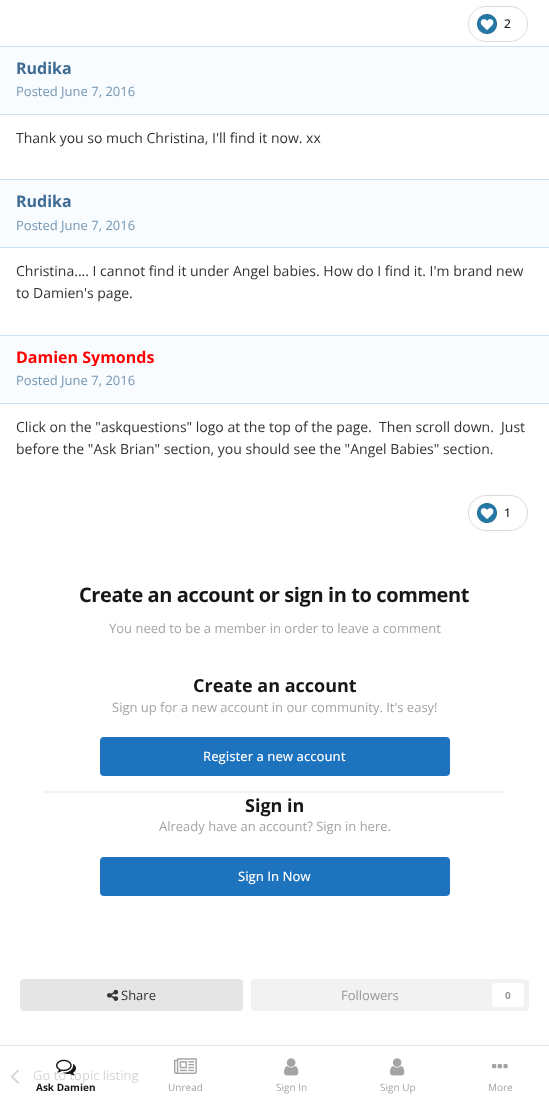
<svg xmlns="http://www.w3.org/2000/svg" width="549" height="1106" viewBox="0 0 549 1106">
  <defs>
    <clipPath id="clip1"><rect x="16" y="348" width="138" height="18"/></clipPath>
  </defs>
  <rect width="100%" height="100%" fill="#ffffff"/>
  <rect x="468.5" y="6.5" width="59" height="35" rx="17.5" fill="none" stroke="#dbdbdb"/>
  <image x="477" y="14" width="20" height="20" href="img1.png"/>
  <text x="504" y="28" font-family="Open Sans" font-size="12" font-weight="500" fill="#171717">2</text>
  <rect x="0" y="47" width="549" height="67" fill="#f9fcff"/>
  <rect x="0" y="46" width="549" height="1" fill="#cee1f1"/>
  <rect x="0" y="114" width="549" height="1" fill="#cee1f1"/>
  <text x="16" y="74" font-family="Open Sans" font-size="16" font-weight="bold" fill="#3d6b93">Rudika</text>
  <text x="16" y="96" font-family="Open Sans" font-size="13" fill="#7597b3">Posted June 7, 2016</text>
  <text x="16" y="143" font-family="Open Sans" font-size="14" fill="#333333">Thank you so much Christina, I'll find it now. xx</text>
  <rect x="0" y="180" width="549" height="67" fill="#f9fcff"/>
  <rect x="0" y="179" width="549" height="1" fill="#cee1f1"/>
  <rect x="0" y="247" width="549" height="1" fill="#cee1f1"/>
  <text x="16" y="207" font-family="Open Sans" font-size="16" font-weight="bold" fill="#3d6b93">Rudika</text>
  <text x="16" y="230" font-family="Open Sans" font-size="13" fill="#7597b3">Posted June 7, 2016</text>
  <text x="16" y="276" font-family="Open Sans" font-size="14" fill="#333333">Christina.... I cannot find it under Angel babies. How do I find it. I'm brand new</text>
  <text x="16" y="298" font-family="Open Sans" font-size="14" fill="#333333">to Damien's page.</text>
  <rect x="0" y="336" width="549" height="67" fill="#f9fcff"/>
  <rect x="0" y="335" width="549" height="1" fill="#cee1f1"/>
  <rect x="0" y="403" width="549" height="1" fill="#cee1f1"/>
  <g clip-path="url(#clip1)">
    <text x="16" y="363" font-family="Open Sans" font-size="16" font-weight="bold" fill="#ff0000">Damien Symonds</text>
  </g>
  <text x="16" y="385" font-family="Open Sans" font-size="13" fill="#7597b3">Posted June 7, 2016</text>
  <text x="16" y="432" font-family="Open Sans" font-size="14" fill="#333333" xml:space="preserve">Click on the "askquestions" logo at the top of the page.  Then scroll down.  Just</text>
  <text x="16" y="454" font-family="Open Sans" font-size="14" fill="#333333">before the "Ask Brian" section, you should see the "Angel Babies" section.</text>
  <rect x="468.5" y="495.5" width="59" height="35" rx="17.5" fill="none" stroke="#dbdbdb"/>
  <image x="477" y="503" width="20" height="20" href="img1.png"/>
  <text x="504" y="517" font-family="Open Sans" font-size="12" font-weight="500" fill="#171717">1</text>
  <text x="79" y="602" font-family="Open Sans" font-size="20" font-weight="bold" letter-spacing="-0.4" fill="#171717">Create an account or sign in to comment</text>
  <text x="109" y="633" font-family="Open Sans" font-size="13" fill="#a4a4a4">You need to be a member in order to leave a comment</text>
  <rect x="43" y="791" width="463" height="2" fill="#f3f3f3"/>
  <text x="193" y="692" font-family="Open Sans" font-size="18" font-weight="bold" fill="#171717">Create an account</text>
  <text x="112" y="712" font-family="Open Sans" font-size="13" fill="#a4a4a4">Sign up for a new account in our community. It's easy!</text>
  <rect x="100" y="737" width="350" height="39" rx="4" fill="#1e73be"/>
  <text x="203" y="761" font-family="Open Sans" font-size="13" font-weight="500" fill="#ffffff">Register a new account</text>
  <text x="245" y="812" font-family="Open Sans" font-size="18" font-weight="bold" fill="#171717">Sign in</text>
  <text x="159" y="831" font-family="Open Sans" font-size="13" fill="#a4a4a4">Already have an account? Sign in here.</text>
  <rect x="100" y="857" width="350" height="39" rx="4" fill="#1e73be"/>
  <text x="238" y="881" font-family="Open Sans" font-size="13" font-weight="500" fill="#ffffff">Sign In Now</text>
  <rect x="20" y="979" width="223" height="32" rx="4" fill="#e5e5e5"/>
  <image x="107" y="989" width="12" height="12" href="img2.png"/>
  <text x="121" y="1000" font-family="Open Sans" font-size="13" fill="#333333">Share</text>
  <rect x="251" y="979" width="278" height="32" rx="4" fill="#f2f2f2"/>
  <text x="341" y="1000" font-family="Open Sans" font-size="13" fill="#999999">Followers</text>
  <rect x="492" y="983" width="32" height="24" rx="4" fill="#ffffff"/>
  <text x="505" y="999" font-family="Open Sans" font-size="10" font-weight="bold" fill="#999999">0</text>
  <image x="10" y="1069" width="10" height="15" href="img3.png"/>
  <text x="33" y="1080" font-family="Open Sans" font-size="13" fill="#d6d6d6">Go to topic listing</text>
  <rect x="0" y="1045" width="549" height="1" fill="#e6e6e6"/>
  <image x="56" y="1059" width="20" height="17" href="img4.png"/>
  <text x="36" y="1091" font-family="Open Sans" font-size="10" font-weight="bold" fill="#171717">Ask Damien</text>
  <image x="174" y="1058" width="23" height="16" href="img5.png"/>
  <text x="168" y="1091" font-family="Open Sans" font-size="10" fill="#a4a4a4">Unread</text>
  <image x="284" y="1058" width="15" height="18" href="img6.png"/>
  <text x="276" y="1091" font-family="Open Sans" font-size="10" fill="#a4a4a4">Sign In</text>
  <image x="390" y="1058" width="15" height="18" href="img6.png"/>
  <text x="380" y="1091" font-family="Open Sans" font-size="10" fill="#a4a4a4">Sign Up</text>
  <image x="492" y="1064" width="16" height="5" href="img7.png"/>
  <text x="488" y="1091" font-family="Open Sans" font-size="10" fill="#a4a4a4">More</text>
</svg>
